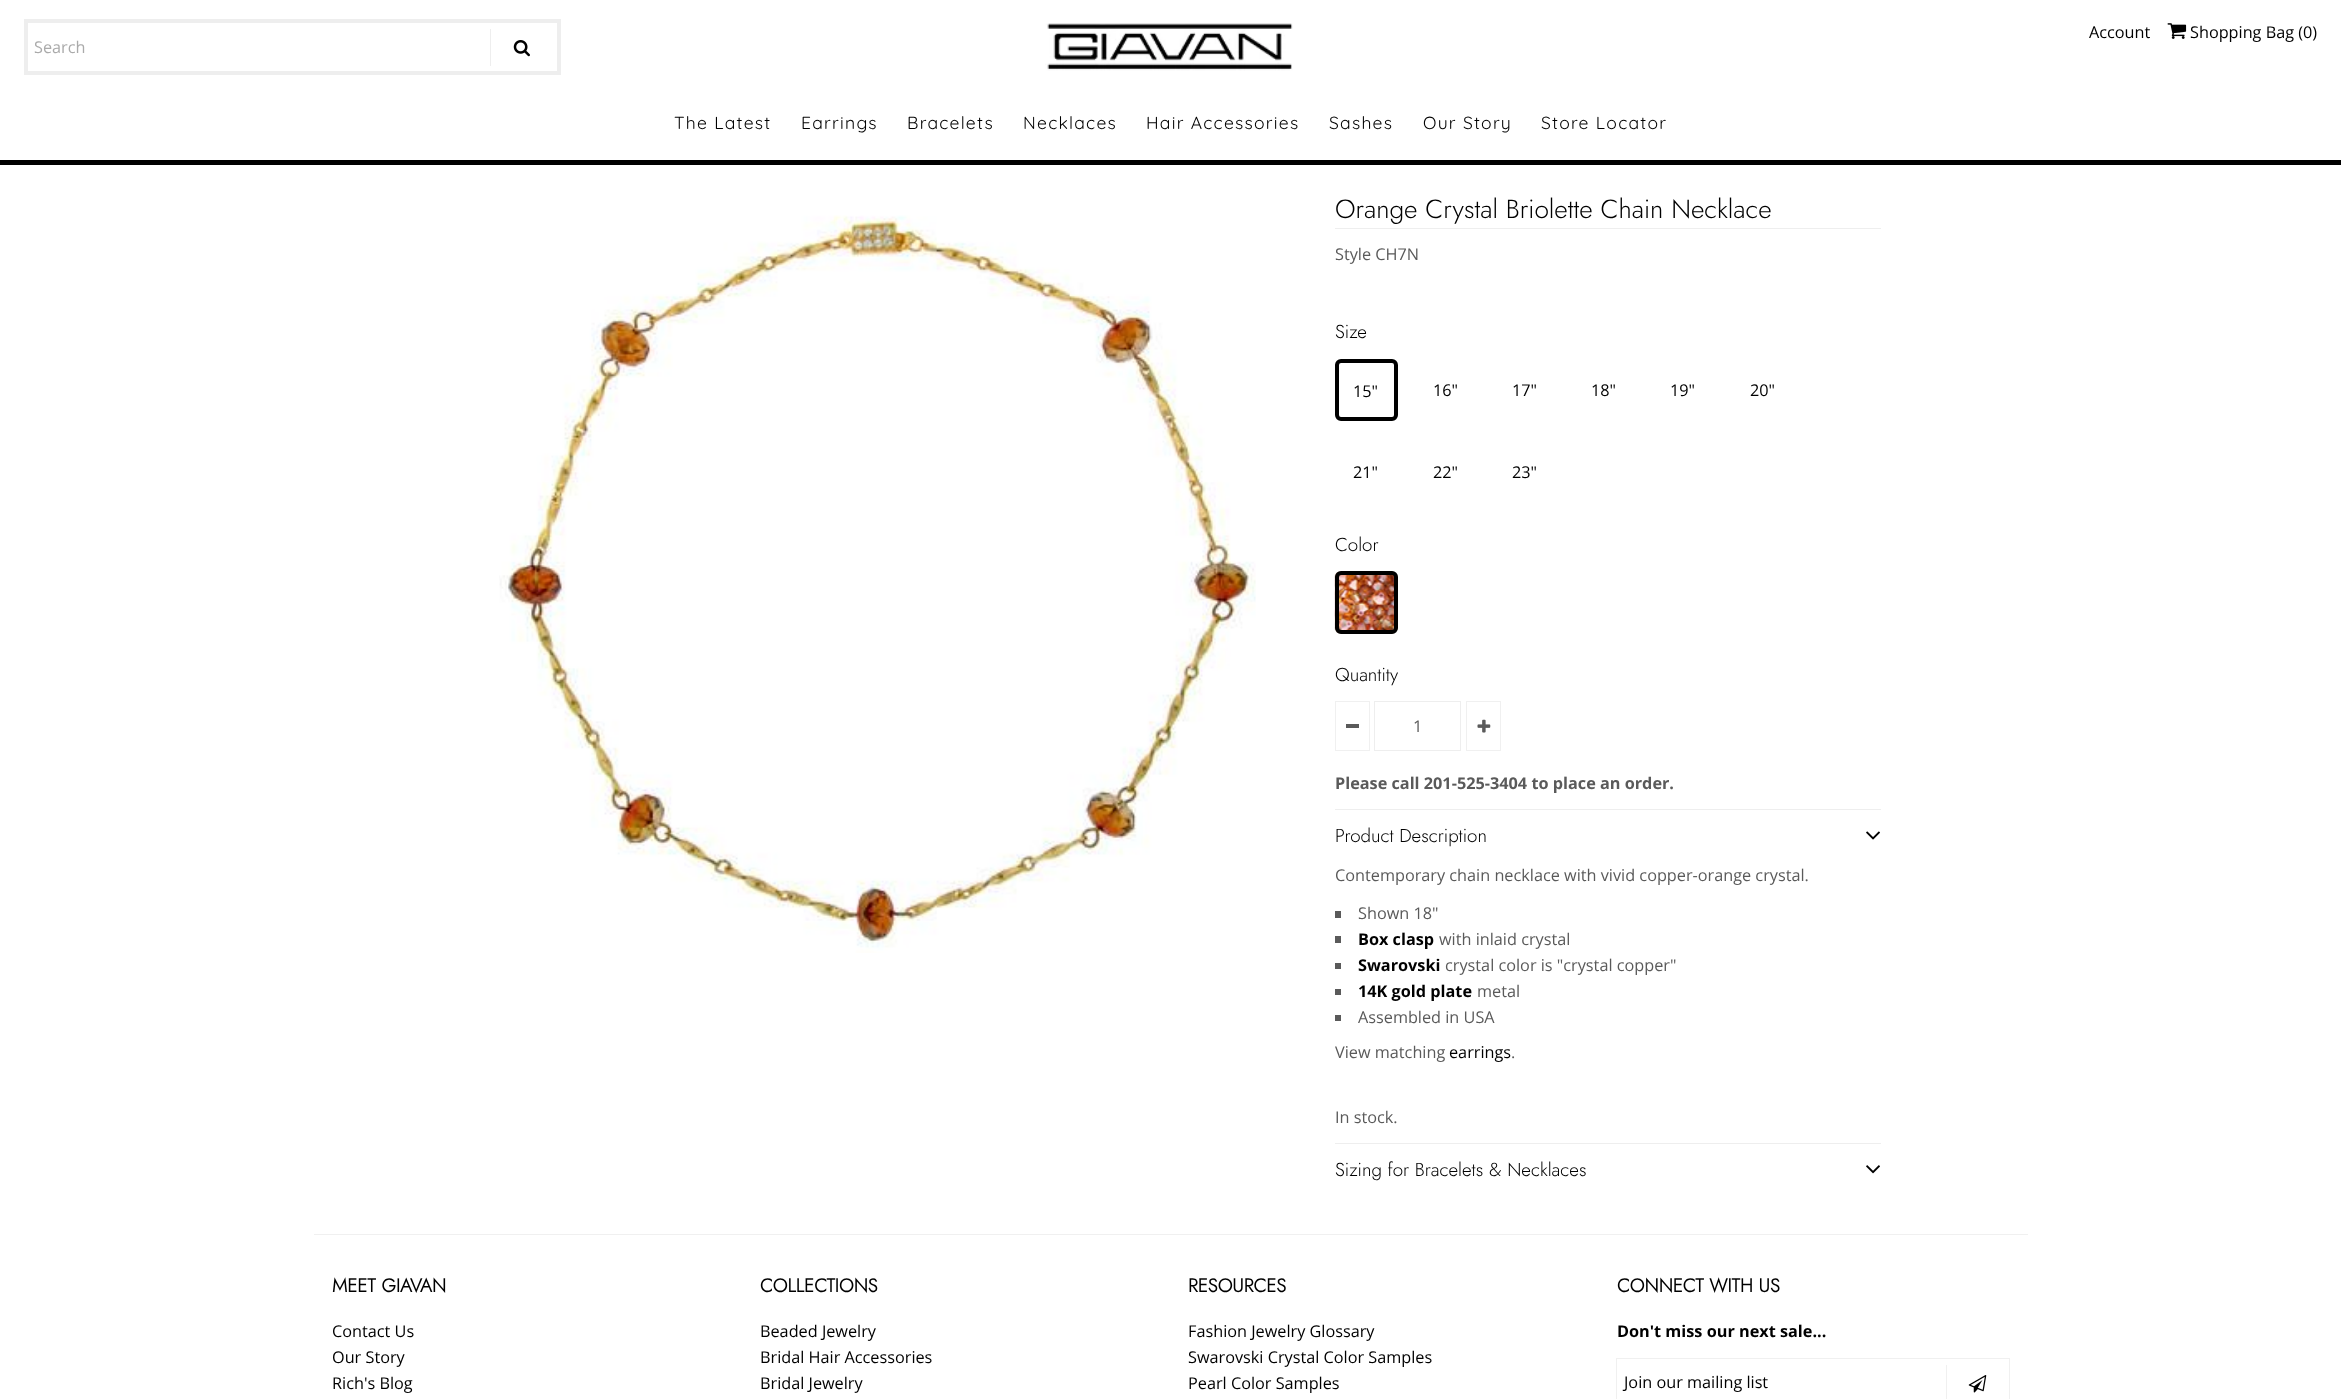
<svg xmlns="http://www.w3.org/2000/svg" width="2341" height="1399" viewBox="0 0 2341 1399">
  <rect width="100%" height="100%" fill="#ffffff"/>
  <image x="1045" y="23" width="248" height="48" href="img1.png"/>
  <text x="2089" y="38" font-family="Open Sans" font-size="16.25" fill="#000000">Account</text>
  <image x="2167" y="23" width="20" height="16" href="img2.png"/>
  <text x="2190" y="38" font-family="Open Sans" font-size="16.25" fill="#000000">Shopping Bag (0)</text>
  <rect x="26" y="21" width="533" height="52" fill="none" stroke="#eeeeee" stroke-width="4"/>
  <text x="34" y="53" font-family="Open Sans" font-size="16.25" fill="#aaaaaa">Search</text>
  <rect x="490" y="29" width="1" height="37" fill="#eeeeee"/>
  <image x="513" y="40" width="17" height="17" href="img3.png"/>
  <rect x="0" y="160" width="2341" height="5" fill="#000000"/>
  <text x="674" y="129" font-family="Quicksand" font-size="17.5" letter-spacing="1.25" fill="#000000">The Latest</text>
  <text x="801" y="129" font-family="Quicksand" font-size="17.5" letter-spacing="1.25" fill="#000000">Earrings</text>
  <text x="907" y="129" font-family="Quicksand" font-size="17.5" letter-spacing="1.25" fill="#000000">Bracelets</text>
  <text x="1023" y="129" font-family="Quicksand" font-size="17.5" letter-spacing="1.25" fill="#000000">Necklaces</text>
  <text x="1146" y="129" font-family="Quicksand" font-size="17.5" letter-spacing="1.25" fill="#000000">Hair Accessories</text>
  <text x="1329" y="129" font-family="Quicksand" font-size="17.5" letter-spacing="1.25" fill="#000000">Sashes</text>
  <text x="1423" y="129" font-family="Quicksand" font-size="17.5" letter-spacing="1.25" fill="#000000">Our Story</text>
  <text x="1541" y="129" font-family="Quicksand" font-size="17.5" letter-spacing="1.25" fill="#000000">Store Locator</text>
  <image x="499" y="215" width="757" height="738" href="img4.png"/>
  <rect x="1335" y="228" width="546" height="1" fill="#eeeeee"/>
  <text x="1335" y="218" font-family="Jost" font-size="26.25" font-weight="300" fill="#000000">Orange Crystal Briolette Chain Necklace</text>
  <text x="1335" y="260" font-family="Open Sans" font-size="16.25" fill="#5a5a5a">Style CH7N</text>
  <text x="1335" y="338" font-family="Jost" font-size="18.75" font-weight="300" fill="#000000">Size</text>
  <rect x="1337" y="361" width="59" height="58" rx="4" fill="none" stroke="#000000" stroke-width="4"/>
  <text x="1353" y="397" font-family="Open Sans" font-size="16.25" fill="#000000">15"</text>
  <text x="1433" y="396" font-family="Open Sans" font-size="16.25" fill="#000000">16"</text>
  <text x="1512" y="396" font-family="Open Sans" font-size="16.25" fill="#000000">17"</text>
  <text x="1591" y="396" font-family="Open Sans" font-size="16.25" fill="#000000">18"</text>
  <text x="1670" y="396" font-family="Open Sans" font-size="16.25" fill="#000000">19"</text>
  <text x="1750" y="396" font-family="Open Sans" font-size="16.25" fill="#000000">20"</text>
  <text x="1353" y="478" font-family="Open Sans" font-size="16.25" fill="#000000">21"</text>
  <text x="1433" y="478" font-family="Open Sans" font-size="16.25" fill="#000000">22"</text>
  <text x="1512" y="478" font-family="Open Sans" font-size="16.25" fill="#000000">23"</text>
  <text x="1335" y="551" font-family="Jost" font-size="18.75" font-weight="300" fill="#000000">Color</text>
  <image x="1334" y="571" width="64" height="63" href="img5.png"/>
  <rect x="1337" y="573" width="59" height="59" rx="4" fill="none" stroke="#000000" stroke-width="4"/>
  <text x="1335" y="681" font-family="Jost" font-size="18.75" font-weight="300" fill="#000000">Quantity</text>
  <rect x="1335.5" y="701.5" width="34" height="49" fill="none" stroke="#f0f0f0"/>
  <rect x="1346" y="724" width="13" height="4" fill="#5a5a5a"/>
  <rect x="1374.5" y="701.5" width="86" height="49" fill="none" stroke="#eeeeee"/>
  <text x="1413" y="732" font-family="Open Sans" font-size="16.25" fill="#5a5a5a">1</text>
  <rect x="1466.5" y="701.5" width="34" height="49" fill="none" stroke="#f0f0f0"/>
  <image x="1477" y="719" width="14" height="14" href="img6.png"/>
  <text x="1335" y="789" font-family="Open Sans" font-size="16.25" font-weight="bold" fill="#5a5a5a">Please call 201-525-3404 to place an order.</text>
  <rect x="1335" y="809" width="546" height="1" fill="#eeeeee"/>
  <text x="1335" y="842" font-family="Jost" font-size="18.75" font-weight="300" fill="#000000">Product Description</text>
  <image x="1866" y="831" width="14" height="9" href="img7.png"/>
  <text x="1335" y="881" font-family="Open Sans" font-size="16.25" fill="#5a5a5a">Contemporary chain necklace with vivid copper-orange crystal.</text>
  <rect x="1335" y="911" width="6" height="7" fill="#5a5a5a"/>
  <text x="1358" y="919" font-family="Open Sans" font-size="16.25" fill="#5a5a5a">Shown 18"</text>
  <rect x="1335" y="936" width="6" height="7" fill="#5a5a5a"/>
  <text x="1358" y="945" font-family="Open Sans" font-size="16.25" font-weight="bold" fill="#000000">Box clasp</text>
  <text x="1439" y="945" font-family="Open Sans" font-size="16.25" fill="#5a5a5a">with inlaid crystal</text>
  <rect x="1335" y="963" width="6" height="6" fill="#5a5a5a"/>
  <text x="1358" y="971" font-family="Open Sans" font-size="16.25" font-weight="bold" fill="#000000">Swarovski</text>
  <text x="1445" y="971" font-family="Open Sans" font-size="16.25" fill="#5a5a5a">crystal color is "crystal copper"</text>
  <rect x="1335" y="989" width="6" height="6" fill="#5a5a5a"/>
  <text x="1358" y="997" font-family="Open Sans" font-size="16.25" font-weight="bold" fill="#000000">14K gold plate</text>
  <text x="1477" y="997" font-family="Open Sans" font-size="16.25" fill="#5a5a5a">metal</text>
  <rect x="1335" y="1015" width="6" height="6" fill="#5a5a5a"/>
  <text x="1358" y="1023" font-family="Open Sans" font-size="16.25" fill="#5a5a5a">Assembled in USA</text>
  <text x="1335" y="1058" font-family="Open Sans" font-size="16.25" fill="#5a5a5a">View matching</text>
  <text x="1449" y="1058" font-family="Open Sans" font-size="16.25" fill="#000000">earrings</text>
  <text x="1511" y="1058" font-family="Open Sans" font-size="16.25" fill="#5a5a5a">.</text>
  <text x="1335" y="1123" font-family="Open Sans" font-size="16.25" fill="#5a5a5a">In stock.</text>
  <rect x="1335" y="1143" width="546" height="1" fill="#eeeeee"/>
  <text x="1335" y="1176" font-family="Jost" font-size="18.75" font-weight="300" fill="#000000">Sizing for Bracelets &amp; Necklaces</text>
  <image x="1866" y="1165" width="14" height="9" href="img8.png"/>
  <rect x="314" y="1234" width="1714" height="1" fill="#f0f0f0"/>
  <text x="332" y="1292" font-family="Jost" font-size="18.75" font-weight="bold" fill="#000000">MEET GIAVAN</text>
  <text x="332" y="1337" font-family="Open Sans" font-size="16.25" fill="#000000">Contact Us</text>
  <text x="332" y="1363" font-family="Open Sans" font-size="16.25" fill="#000000">Our Story</text>
  <text x="332" y="1389" font-family="Open Sans" font-size="16.25" fill="#000000">Rich's Blog</text>
  <text x="760" y="1292" font-family="Jost" font-size="18.75" font-weight="bold" fill="#000000">COLLECTIONS</text>
  <text x="760" y="1337" font-family="Open Sans" font-size="16.25" fill="#000000">Beaded Jewelry</text>
  <text x="760" y="1363" font-family="Open Sans" font-size="16.25" fill="#000000">Bridal Hair Accessories</text>
  <text x="760" y="1389" font-family="Open Sans" font-size="16.25" fill="#000000">Bridal Jewelry</text>
  <text x="1188" y="1292" font-family="Jost" font-size="18.75" font-weight="bold" fill="#000000">RESOURCES</text>
  <text x="1188" y="1337" font-family="Open Sans" font-size="16.25" fill="#000000">Fashion Jewelry Glossary</text>
  <text x="1188" y="1363" font-family="Open Sans" font-size="16.25" fill="#000000">Swarovski Crystal Color Samples</text>
  <text x="1188" y="1389" font-family="Open Sans" font-size="16.25" fill="#000000">Pearl Color Samples</text>
  <text x="1617" y="1292" font-family="Jost" font-size="18.75" font-weight="bold" fill="#000000">CONNECT WITH US</text>
  <text x="1617" y="1337" font-family="Open Sans" font-size="16.25" font-weight="bold" fill="#000000">Don't miss our next sale...</text>
  <rect x="1616.5" y="1358.5" width="393" height="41" fill="none" stroke="#f0f0f0"/>
  <text x="1624" y="1388" font-family="Open Sans" font-size="16.25" fill="#000000">Join our mailing list</text>
  <rect x="1946" y="1365" width="1" height="34" fill="#f0f0f0"/>
  <image x="1968" y="1375" width="19" height="18" href="img9.png"/>
</svg>
